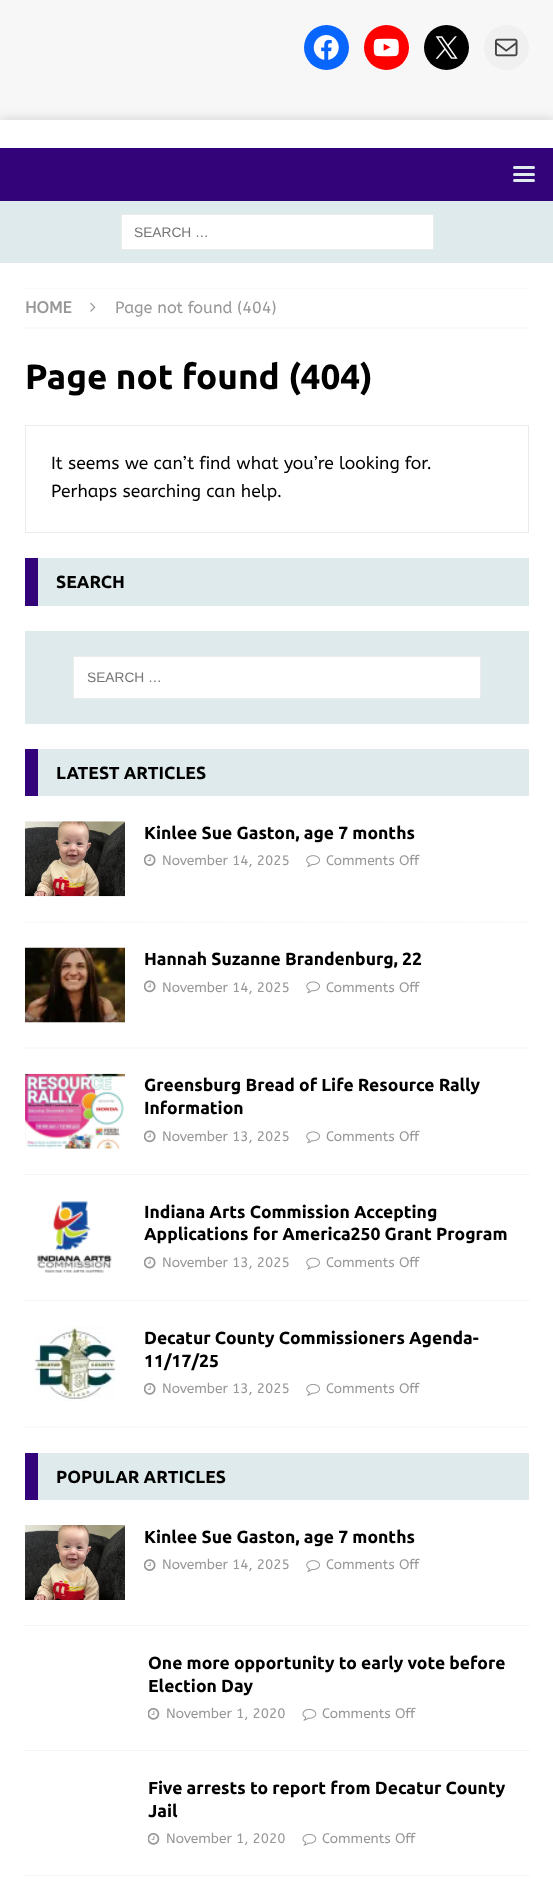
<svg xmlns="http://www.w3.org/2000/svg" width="553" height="1896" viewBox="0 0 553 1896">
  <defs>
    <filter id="blur1" x="-50%" y="-200%" width="200%" height="500%"><feGaussianBlur stdDeviation="6"/></filter>
    <clipPath id="clip1"><rect x="25" y="288" width="504" height="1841"/></clipPath>
  </defs>
  <rect width="100%" height="100%" fill="#f7f7f7"/>
  <circle cx="326.5" cy="47.5" r="22.5" fill="#0866ff"/>
  <image x="313" y="35" width="26" height="25" href="img1.png"/>
  <circle cx="386.5" cy="47.5" r="22.5" fill="#ff0000"/>
  <image x="373" y="38" width="26" height="19" href="img2.png"/>
  <circle cx="446.5" cy="47.5" r="22.5" fill="#000000"/>
  <image x="435" y="36" width="23" height="23" href="img3.png"/>
  <circle cx="506.5" cy="47.5" r="22.5" fill="#f0f0f0"/>
  <image x="495" y="38" width="23" height="19" href="img4.png"/>
  <rect x="0" y="120" width="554" height="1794" fill="#323232" fill-opacity="0.17" filter="url(#blur1)"/>
  <rect x="0" y="120" width="553" height="28" fill="#ffffff"/>
  <rect x="0" y="148" width="553" height="53" fill="#330479"/>
  <rect x="513" y="166" width="22" height="3" rx="1.5" fill="#dfeaec"/>
  <rect x="513" y="173" width="22" height="3" rx="1.5" fill="#dfeaec"/>
  <rect x="513" y="179" width="22" height="3" rx="1.5" fill="#dfeaec"/>
  <rect x="0" y="201" width="553" height="62" fill="#dfeaec"/>
  <rect x="121.5" y="214.5" width="312" height="35" fill="#ffffff" stroke="#ebebeb"/>
  <text x="134" y="237" font-family="Liberation Sans" font-size="13.75" fill="#757575">SEARCH …</text>
  <rect x="0" y="263" width="553" height="1633" fill="#ffffff"/>
  <g clip-path="url(#clip1)">
    <path d="M25 288H529" fill="none" stroke="#ebebeb" stroke-width="1.2" stroke-dasharray="1.25 1.25"/>
  </g>
  <path d="M25 328H529" fill="none" stroke="#ebebeb" stroke-width="1.2" stroke-dasharray="1.25 1.25"/>
  <text x="25" y="313" font-family="ABeeZee" font-size="16.25" font-weight="bold" fill="#979797">HOME</text>
  <image x="90" y="302" width="6" height="10" href="img5.png"/>
  <text x="115" y="313" font-family="ABeeZee" font-size="16.25" fill="#979797">Page not found (404)</text>
  <text x="25" y="389" font-family="Ubuntu" font-size="35" font-weight="bold" fill="#000000">Page not found (404)</text>
  <rect x="25.5" y="425.5" width="503" height="107" fill="none" stroke="#ebebeb"/>
  <text x="51" y="469" font-family="ABeeZee" font-size="17.5" fill="#000000">It seems we can’t find what you’re looking for.</text>
  <text x="51" y="497" font-family="ABeeZee" font-size="17.5" fill="#000000">Perhaps searching can help.</text>
  <rect x="38" y="558" width="491" height="48" fill="#dfeaec"/>
  <rect x="25" y="558" width="13" height="48" fill="#330479"/>
  <text x="56" y="588" font-family="Ubuntu" font-size="17.5" font-weight="bold" fill="#000000">SEARCH</text>
  <rect x="25" y="631" width="504" height="93" fill="#dfeaec"/>
  <rect x="73.5" y="656.5" width="407" height="42" fill="#ffffff" stroke="#ebebeb"/>
  <text x="87" y="682" font-family="Liberation Sans" font-size="13.75" fill="#757575">SEARCH …</text>
  <rect x="38" y="749" width="491" height="47" fill="#dfeaec"/>
  <rect x="25" y="749" width="13" height="47" fill="#330479"/>
  <text x="56" y="779" font-family="Ubuntu" font-size="17.5" font-weight="bold" fill="#000000">LATEST ARTICLES</text>
  <path d="M25 922H529" fill="none" stroke="#ebebeb" stroke-width="1.2" stroke-dasharray="1.25 1.25"/>
  <image x="25" y="821" width="100" height="76" href="img6.png"/>
  <text x="144" y="839" font-family="Ubuntu" font-size="17.5" font-weight="bold" fill="#000000">Kinlee Sue Gaston, age 7 months</text>
  <image x="144" y="854" width="12" height="12" href="img7.png"/>
  <text x="162" y="865" font-family="ABeeZee" font-size="13.75" fill="#979797">November 14, 2025</text>
  <image x="306" y="855" width="14" height="12" href="img8.png"/>
  <text x="326" y="865" font-family="ABeeZee" font-size="13.75" fill="#979797">Comments Off</text>
  <path d="M25 1048H529" fill="none" stroke="#ebebeb" stroke-width="1.2" stroke-dasharray="1.25 1.25"/>
  <image x="25" y="947" width="100" height="76" href="img9.png"/>
  <text x="144" y="965" font-family="Ubuntu" font-size="17.5" font-weight="bold" fill="#000000">Hannah Suzanne Brandenburg, 22</text>
  <image x="144" y="980" width="12" height="13" href="img10.png"/>
  <text x="162" y="992" font-family="ABeeZee" font-size="13.75" fill="#979797">November 14, 2025</text>
  <image x="306" y="981" width="14" height="13" href="img11.png"/>
  <text x="326" y="992" font-family="ABeeZee" font-size="13.75" fill="#979797">Comments Off</text>
  <path d="M25 1174.5H529" fill="none" stroke="#ebebeb" stroke-width="1.2" stroke-dasharray="1.25 1.25"/>
  <image x="25" y="1073" width="100" height="76" href="img12.png"/>
  <text x="144" y="1091" font-family="Ubuntu" font-size="17.5" font-weight="bold" fill="#000000">Greensburg Bread of Life Resource Rally</text>
  <text x="144" y="1114" font-family="Ubuntu" font-size="17.5" font-weight="bold" fill="#000000">Information</text>
  <image x="144" y="1130" width="12" height="13" href="img10.png"/>
  <text x="162" y="1141" font-family="ABeeZee" font-size="13.75" fill="#979797">November 13, 2025</text>
  <image x="306" y="1131" width="14" height="13" href="img11.png"/>
  <text x="326" y="1141" font-family="ABeeZee" font-size="13.75" fill="#979797">Comments Off</text>
  <path d="M25 1300.5H529" fill="none" stroke="#ebebeb" stroke-width="1.2" stroke-dasharray="1.25 1.25"/>
  <image x="37" y="1201" width="75" height="72" href="img13.png"/>
  <text x="144" y="1218" font-family="Ubuntu" font-size="17.5" font-weight="bold" fill="#000000">Indiana Arts Commission Accepting</text>
  <text x="144" y="1240" font-family="Ubuntu" font-size="17.5" font-weight="bold" fill="#000000">Applications for America250 Grant Program</text>
  <image x="144" y="1256" width="12" height="13" href="img14.png"/>
  <text x="162" y="1267" font-family="ABeeZee" font-size="13.75" fill="#979797">November 13, 2025</text>
  <image x="306" y="1257" width="14" height="13" href="img15.png"/>
  <text x="326" y="1267" font-family="ABeeZee" font-size="13.75" fill="#979797">Comments Off</text>
  <path d="M25 1427H529" fill="none" stroke="#ebebeb" stroke-width="1.2" stroke-dasharray="1.25 1.25"/>
  <image x="34" y="1326" width="82" height="75" href="img16.png"/>
  <text x="144" y="1344" font-family="Ubuntu" font-size="17.5" font-weight="bold" fill="#000000">Decatur County Commissioners Agenda-</text>
  <text x="144" y="1367" font-family="Ubuntu" font-size="17.5" font-weight="bold" fill="#000000">11/17/25</text>
  <image x="144" y="1383" width="12" height="12" href="img17.png"/>
  <text x="162" y="1393" font-family="ABeeZee" font-size="13.75" fill="#979797">November 13, 2025</text>
  <image x="306" y="1383" width="14" height="13" href="img18.png"/>
  <text x="326" y="1393" font-family="ABeeZee" font-size="13.75" fill="#979797">Comments Off</text>
  <rect x="38" y="1453" width="491" height="47" fill="#dfeaec"/>
  <rect x="25" y="1453" width="13" height="47" fill="#330479"/>
  <text x="56" y="1483" font-family="Ubuntu" font-size="17.5" font-weight="bold" fill="#000000">POPULAR ARTICLES</text>
  <path d="M25 1625.5H529" fill="none" stroke="#ebebeb" stroke-width="1.2" stroke-dasharray="1.25 1.25"/>
  <image x="25" y="1525" width="100" height="75" href="img19.png"/>
  <text x="144" y="1543" font-family="Ubuntu" font-size="17.5" font-weight="bold" fill="#000000">Kinlee Sue Gaston, age 7 months</text>
  <image x="144" y="1559" width="12" height="12" href="img7.png"/>
  <text x="162" y="1569" font-family="ABeeZee" font-size="13.75" fill="#979797">November 14, 2025</text>
  <image x="306" y="1560" width="14" height="12" href="img8.png"/>
  <text x="326" y="1569" font-family="ABeeZee" font-size="13.75" fill="#979797">Comments Off</text>
  <path d="M25 1750.5H529" fill="none" stroke="#ebebeb" stroke-width="1.2" stroke-dasharray="1.25 1.25"/>
  <text x="148" y="1669" font-family="Ubuntu" font-size="17.5" font-weight="bold" fill="#000000">One more opportunity to early vote before</text>
  <text x="148" y="1692" font-family="Ubuntu" font-size="17.5" font-weight="bold" fill="#000000">Election Day</text>
  <image x="148" y="1708" width="12" height="12" href="img20.png"/>
  <text x="166" y="1718" font-family="ABeeZee" font-size="13.75" fill="#979797">November 1, 2020</text>
  <image x="302" y="1708" width="15" height="13" href="img21.png"/>
  <text x="322" y="1718" font-family="ABeeZee" font-size="13.75" fill="#979797">Comments Off</text>
  <path d="M25 1875.5H529" fill="none" stroke="#ebebeb" stroke-width="1.2" stroke-dasharray="1.25 1.25"/>
  <text x="148" y="1794" font-family="Ubuntu" font-size="17.5" font-weight="bold" fill="#000000">Five arrests to report from Decatur County</text>
  <text x="148" y="1817" font-family="Ubuntu" font-size="17.5" font-weight="bold" fill="#000000">Jail</text>
  <image x="148" y="1833" width="12" height="12" href="img20.png"/>
  <text x="166" y="1843" font-family="ABeeZee" font-size="13.75" fill="#979797">November 1, 2020</text>
  <image x="302" y="1833" width="15" height="13" href="img21.png"/>
  <text x="322" y="1843" font-family="ABeeZee" font-size="13.75" fill="#979797">Comments Off</text>
</svg>
